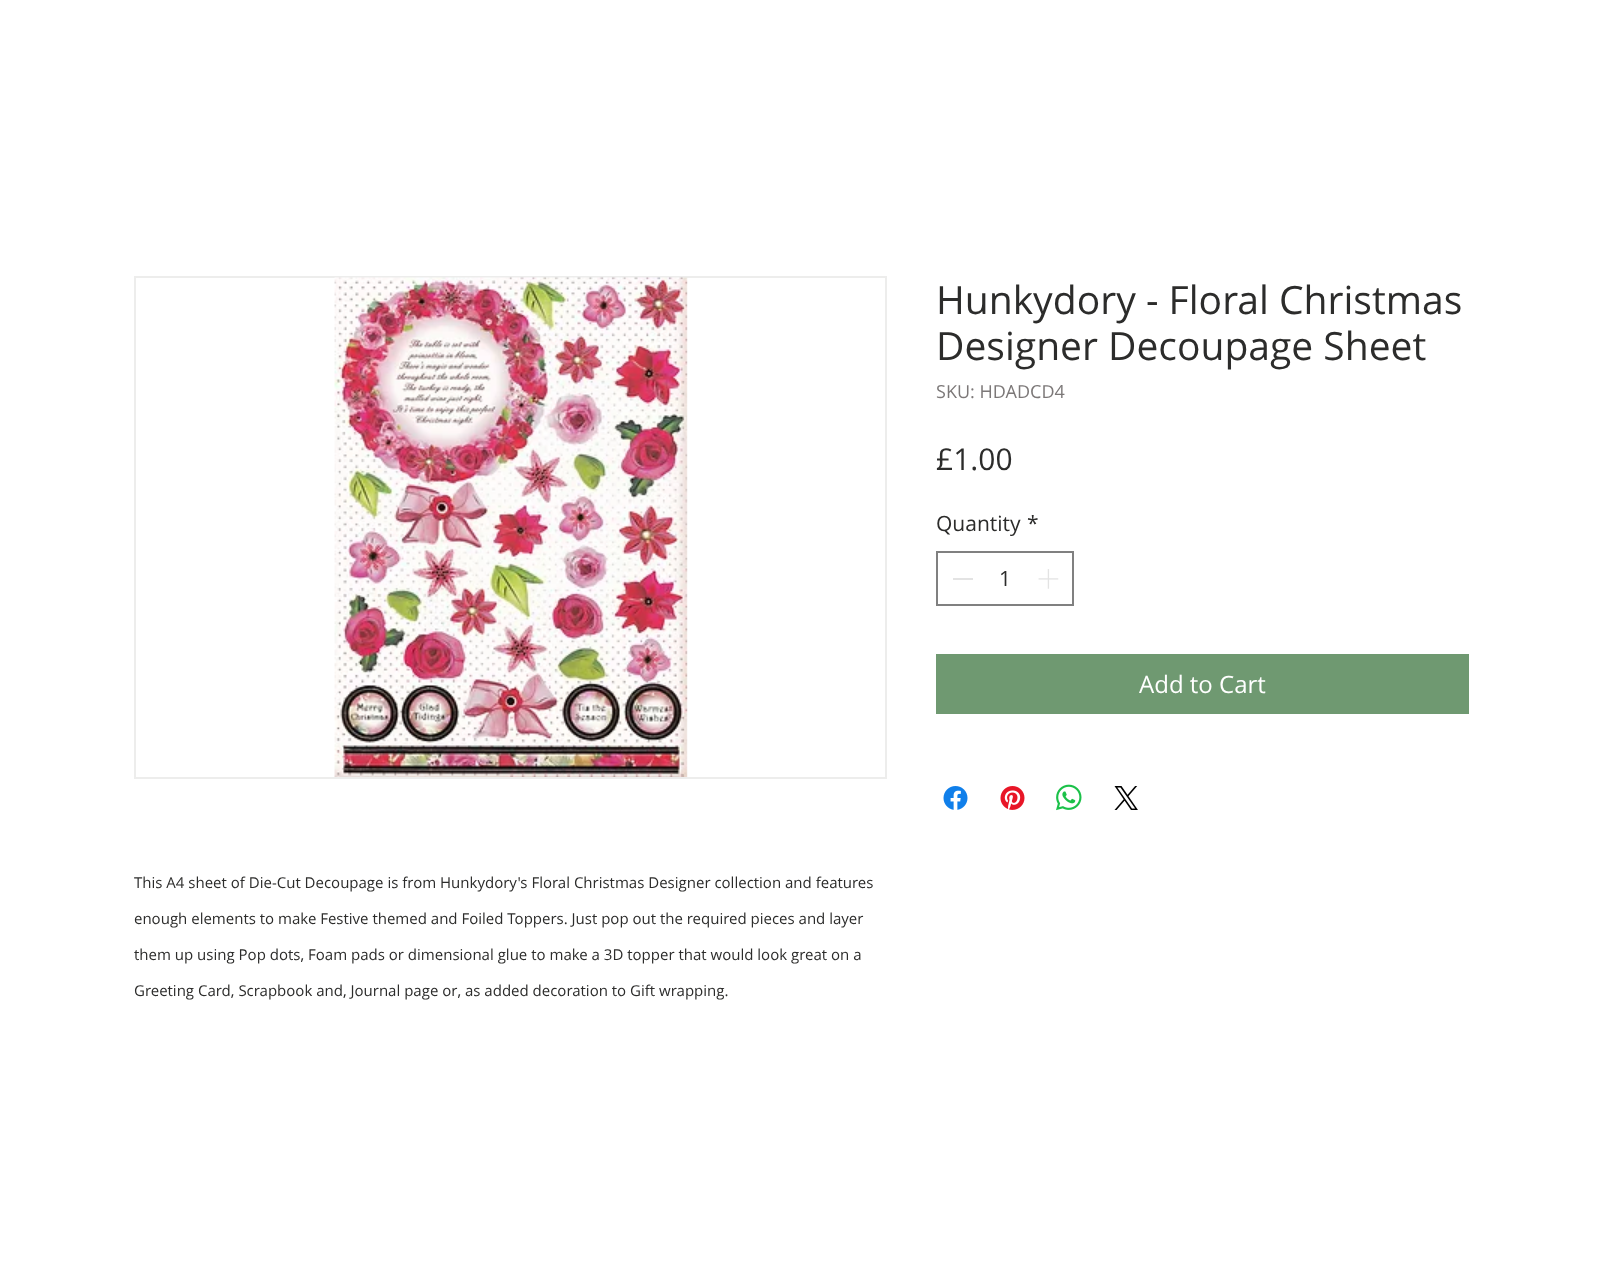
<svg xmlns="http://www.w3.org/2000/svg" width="1617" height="1267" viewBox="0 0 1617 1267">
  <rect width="100%" height="100%" fill="#ffffff"/>
  <text x="936" y="314" font-family="Open Sans" font-size="39" fill="#2c2c2b">Hunkydory - Floral Christmas</text>
  <text x="936" y="360" font-family="Open Sans" font-size="39" fill="#2c2c2b">Designer Decoupage Sheet</text>
  <text x="936" y="398" font-family="Open Sans" font-size="18" fill="#7c7878">SKU: HDADCD4</text>
  <text x="936" y="470" font-family="Open Sans" font-size="30" fill="#2c2c2b">£1.00</text>
  <text x="936" y="531" font-family="Open Sans" font-size="21" fill="#2c2c2b">Quantity</text>
  <text x="1027" y="531" font-family="Open Sans" font-size="21" fill="#2c2c2b">*</text>
  <rect x="937" y="552" width="136" height="53" fill="none" stroke="#808080" stroke-width="2"/>
  <rect x="953" y="578" width="20" height="2" fill="#e3e3e3"/>
  <text x="999" y="586" font-family="Open Sans" font-size="21" fill="#2c2c2b">1</text>
  <image x="1038" y="569" width="21" height="20" href="img1.png"/>
  <rect x="936" y="654" width="533" height="60" fill="#6f9971"/>
  <text x="1139" y="693" font-family="Open Sans" font-size="24" fill="#ffffff">Add to Cart</text>
  <image x="943" y="786" width="25" height="24" href="img2.png"/>
  <image x="1000" y="786" width="25" height="24" href="img3.png"/>
  <image x="1056" y="784" width="26" height="27" href="img4.png"/>
  <image x="1114" y="786" width="24" height="24" href="img5.png"/>
  <rect x="135" y="277" width="751" height="501" fill="none" stroke="#ededec" stroke-width="2"/>
  <image x="334" y="277" width="354" height="500" href="img6.png"/>
  <text x="134" y="888" font-family="Open Sans" font-size="15" fill="#2c2c2b">This A4 sheet of Die-Cut Decoupage is from Hunkydory's Floral Christmas Designer collection and features</text>
  <text x="134" y="924" font-family="Open Sans" font-size="15" fill="#2c2c2b">enough elements to make Festive themed and Foiled Toppers. Just pop out the required pieces and layer</text>
  <text x="134" y="960" font-family="Open Sans" font-size="15" fill="#2c2c2b">them up using Pop dots, Foam pads or dimensional glue to make a 3D topper that would look great on a</text>
  <text x="134" y="996" font-family="Open Sans" font-size="15" fill="#2c2c2b">Greeting Card, Scrapbook and, Journal page or, as added decoration to Gift wrapping.</text>
</svg>
